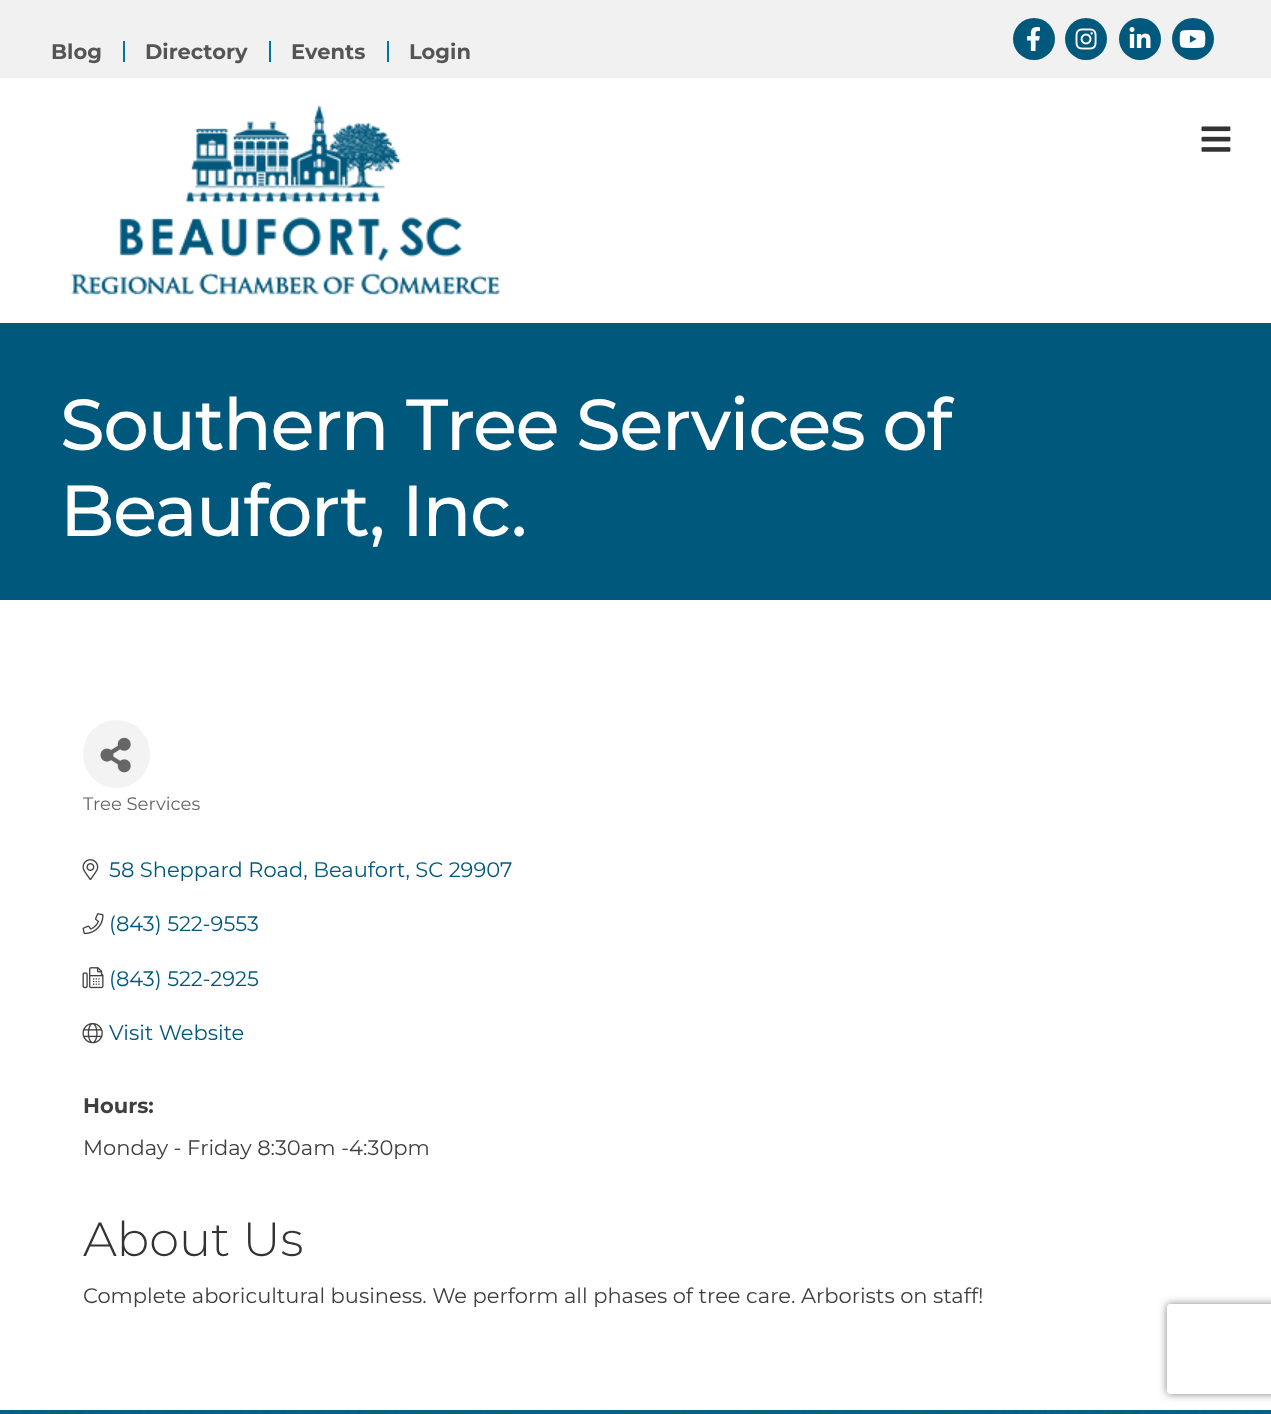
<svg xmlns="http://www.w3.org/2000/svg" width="1271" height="1414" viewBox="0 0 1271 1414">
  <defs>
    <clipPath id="clip1"><path d="M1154 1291H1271V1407H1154ZM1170 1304H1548C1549.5 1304 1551 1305.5 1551 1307V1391C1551 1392.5 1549.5 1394 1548 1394H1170C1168.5 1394 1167 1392.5 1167 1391V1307C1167 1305.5 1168.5 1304 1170 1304Z" clip-rule="evenodd"/></clipPath>
    <filter id="blur1" x="-50%" y="-200%" width="200%" height="500%"><feGaussianBlur stdDeviation="4"/></filter>
  </defs>
  <rect width="100%" height="100%" fill="#ffffff"/>
  <rect x="0" y="0" width="1271" height="78" fill="#f1f1f1"/>
  <text x="51" y="59" font-family="Montserrat" font-size="21" font-weight="bold" fill="#555555">Blog</text>
  <rect x="123" y="41" width="2" height="21" fill="#0075a3"/>
  <text x="145" y="59" font-family="Montserrat" font-size="21" font-weight="bold" fill="#555555">Directory</text>
  <rect x="269" y="41" width="2" height="21" fill="#0075a3"/>
  <text x="291" y="59" font-family="Montserrat" font-size="21" font-weight="bold" fill="#555555">Events</text>
  <rect x="387" y="41" width="2" height="21" fill="#0075a3"/>
  <text x="409" y="59" font-family="Montserrat" font-size="21" font-weight="bold" fill="#555555">Login</text>
  <circle cx="1034" cy="39" r="21" fill="#00587c"/>
  <image x="1027" y="27" width="13" height="24" href="img1.png"/>
  <circle cx="1086" cy="39" r="21" fill="#00587c"/>
  <image x="1075" y="28" width="22" height="22" href="img2.png"/>
  <circle cx="1140" cy="39" r="21" fill="#00587c"/>
  <image x="1129" y="27" width="22" height="21" href="img3.png"/>
  <circle cx="1193" cy="39" r="21" fill="#00587c"/>
  <image x="1179" y="30" width="27" height="18" href="img4.png"/>
  <image x="70" y="105" width="430" height="190" href="img5.png"/>
  <image x="1201" y="126" width="30" height="26" href="img6.png"/>
  <rect x="0" y="323" width="1271" height="277" fill="#00587c"/>
  <text x="60" y="450" font-family="Montserrat" font-size="72" font-weight="500" letter-spacing="-1.5" fill="#ffffff">Southern Tree Services of</text>
  <text x="60" y="536" font-family="Montserrat" font-size="72" font-weight="500" letter-spacing="-1.5" fill="#ffffff">Beaufort, Inc.</text>
  <rect x="83" y="720" width="67" height="68" rx="33.5" fill="#f3f3f3"/>
  <image x="100" y="737" width="31" height="36" href="img7.png"/>
  <text x="83" y="810" font-family="Montserrat" font-size="18" fill="#656565">Tree Services</text>
  <image x="82" y="859" width="17" height="22" href="img8.png"/>
  <text x="109" y="877" font-family="Montserrat" font-size="21" fill="#00587c">58 Sheppard Road, Beaufort, SC 29907</text>
  <image x="82" y="913" width="22" height="22" href="img9.png"/>
  <text x="109" y="931" font-family="Montserrat" font-size="21" fill="#00587c">(843) 522-9553</text>
  <image x="82" y="967" width="22" height="22" href="img10.png"/>
  <text x="109" y="986" font-family="Montserrat" font-size="21" fill="#00587c">(843) 522-2925</text>
  <image x="82" y="1023" width="21" height="21" href="img11.png"/>
  <text x="109" y="1040" font-family="Montserrat" font-size="21" fill="#00587c">Visit Website</text>
  <text x="83" y="1113" font-family="Montserrat" font-size="21" font-weight="bold" fill="#3f3f3f">Hours:</text>
  <text x="83" y="1155" font-family="Montserrat" font-size="21" fill="#3f3f3f">Monday - Friday 8:30am -4:30pm</text>
  <text x="83" y="1256" font-family="Montserrat" font-size="48" font-weight="300" fill="#333333">About Us</text>
  <text x="83" y="1303" font-family="Montserrat" font-size="21" fill="#3f3f3f">Complete aboricultural business. We perform all phases of tree care. Arborists on staff!</text>
  <image x="0" y="1410" width="1271" height="4" href="img12.png"/>
  <g clip-path="url(#clip1)">
    <rect x="1167" y="1304" width="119" height="90" rx="3" fill="#808080" filter="url(#blur1)"/>
  </g>
</svg>
